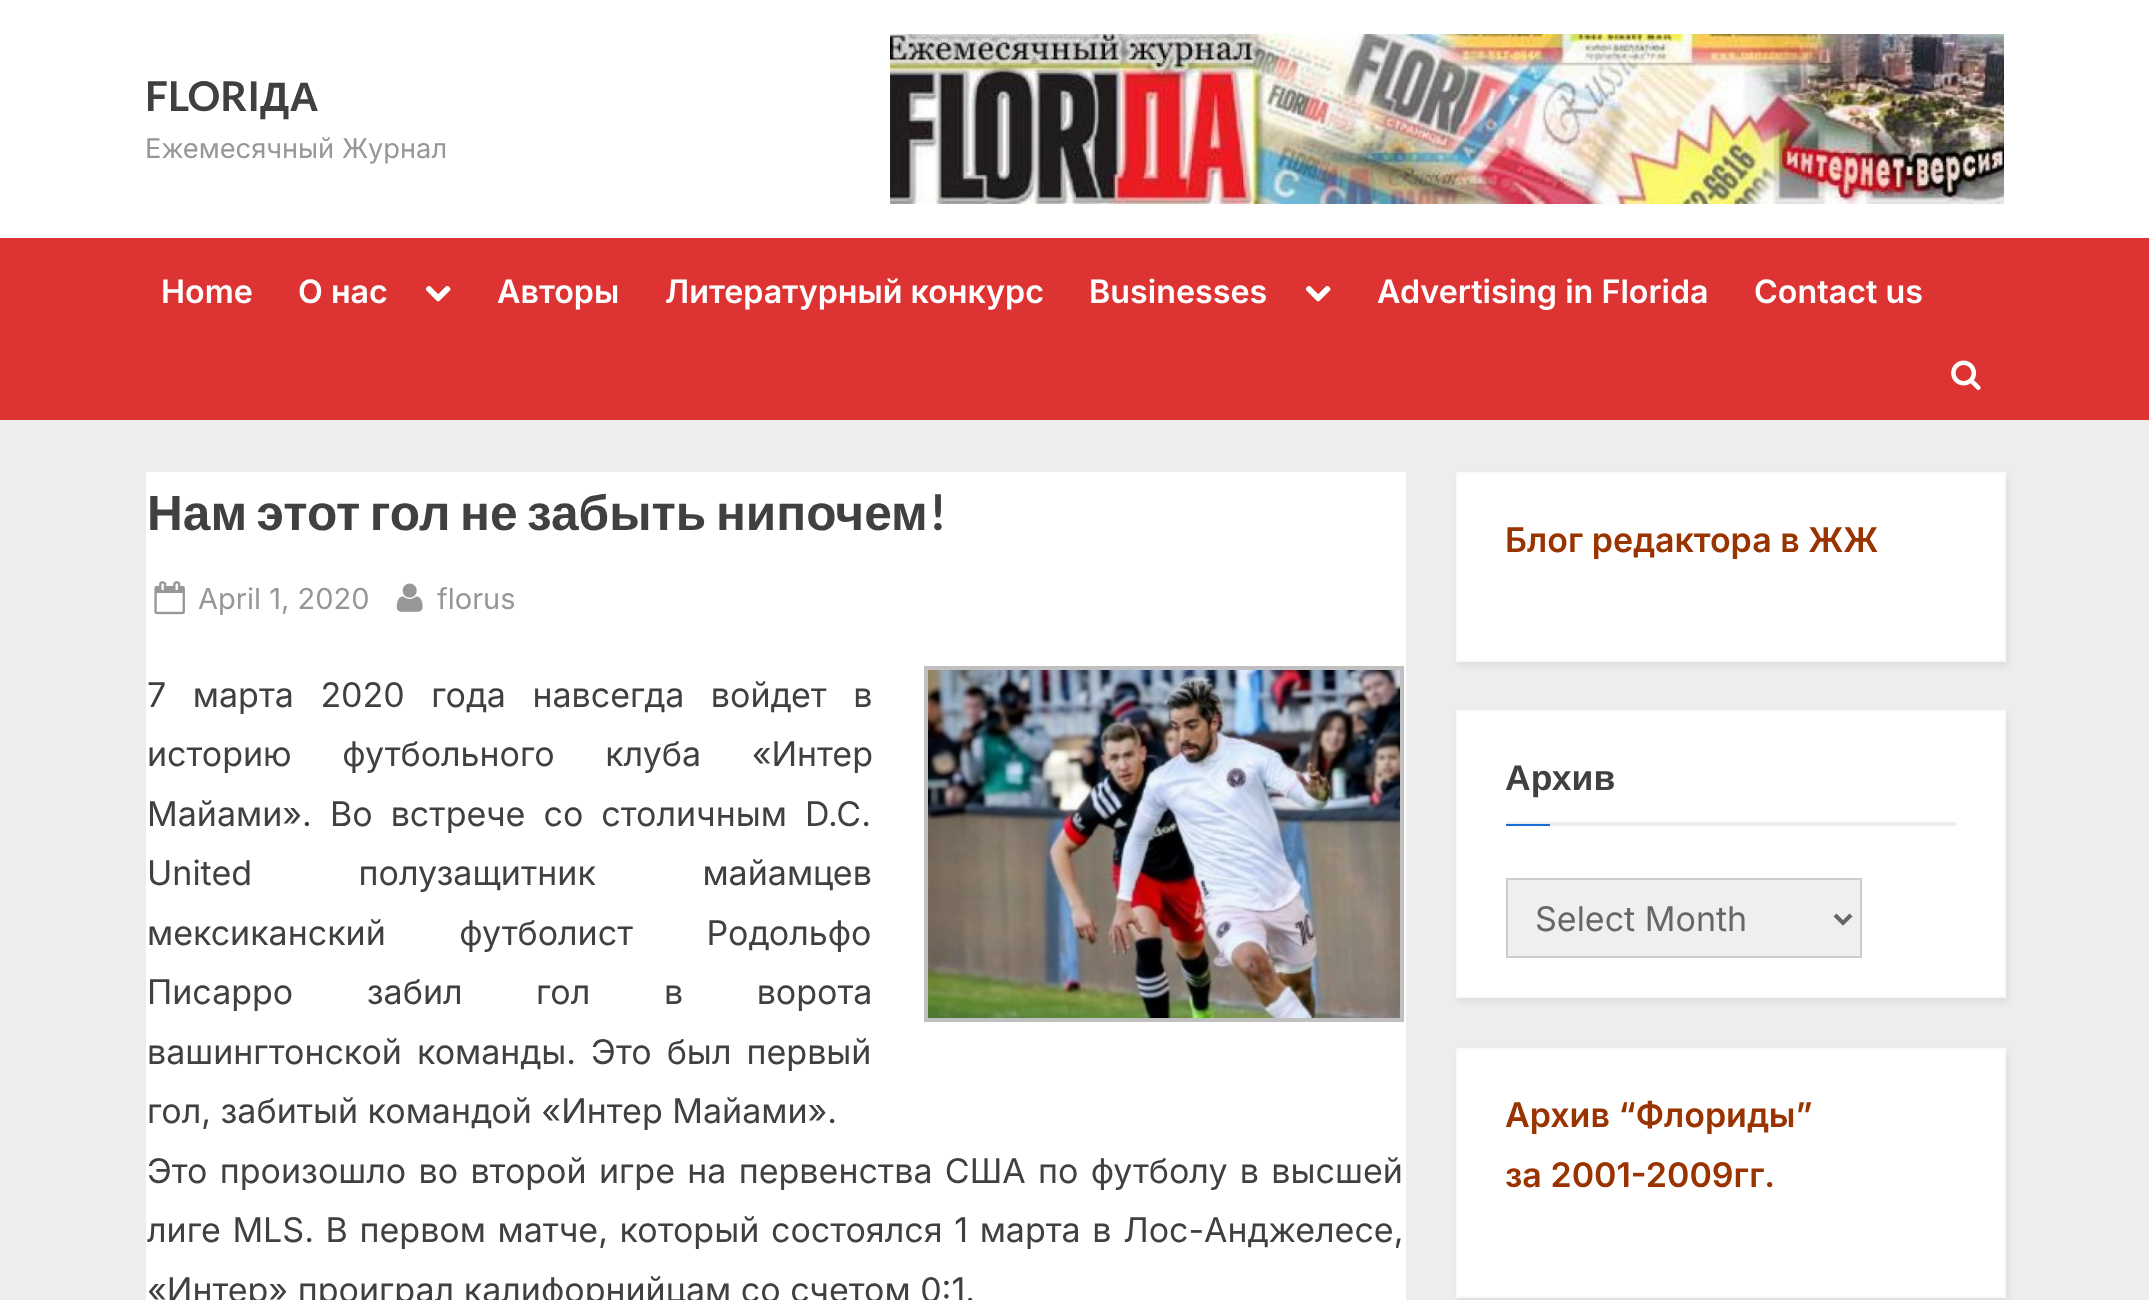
<svg xmlns="http://www.w3.org/2000/svg" width="2149" height="1300" viewBox="0 0 2149 1300">
  <defs>
    <filter id="blur1" x="-50%" y="-200%" width="200%" height="500%"><feGaussianBlur stdDeviation="3"/></filter>
  </defs>
  <rect width="100%" height="100%" fill="#ededed"/>
  <rect x="0" y="0" width="2149" height="238" fill="#ffffff"/>
  <text x="145" y="111" font-family="Lato" font-size="41" font-weight="bold" fill="#404040">FLORI</text>
  <text x="260" y="111" font-family="Liberation Sans" font-size="41" font-weight="bold" fill="#404040">ДА</text>
  <text x="145" y="158" font-family="Inter" font-size="27.25" fill="#979797">Ежемесячный Журнал</text>
  <image x="890" y="34" width="1114" height="170" href="img1.png"/>
  <rect x="0" y="238" width="2149" height="182" fill="#dd3333"/>
  <text x="161" y="303" font-family="Inter" font-size="32.25" font-weight="600" fill="#ffffff">Home</text>
  <text x="298" y="303" font-family="Inter" font-size="32.25" font-weight="600" fill="#ffffff">О нас</text>
  <image x="425" y="285" width="26" height="17" href="img2.png"/>
  <text x="497" y="303" font-family="Inter" font-size="32.25" font-weight="600" fill="#ffffff">Авторы</text>
  <text x="665" y="303" font-family="Inter" font-size="32.25" font-weight="600" fill="#ffffff">Литературный конкурс</text>
  <text x="1089" y="303" font-family="Inter" font-size="32.25" font-weight="600" fill="#ffffff">Businesses</text>
  <image x="1305" y="285" width="26" height="17" href="img2.png"/>
  <text x="1377" y="303" font-family="Inter" font-size="32.25" font-weight="600" fill="#ffffff">Advertising in Florida</text>
  <text x="1754" y="303" font-family="Inter" font-size="32.25" font-weight="600" fill="#ffffff">Contact us</text>
  <image x="1951" y="360" width="30" height="30" href="img3.png"/>
  <rect x="146" y="472" width="1260" height="828" fill="#ffffff"/>
  <text x="147" y="530" word-spacing="-4.25" font-family="Liberation Sans" font-size="49.6" font-weight="bold" fill="#404040">Нам этот гол не забыть нипочем</text>
  <text x="929" y="530" font-family="Lato" font-size="49.6" font-weight="bold" fill="#404040">!</text>
  <image x="154" y="581" width="31" height="34" href="img4.png"/>
  <text x="198" y="609" font-family="Inter" font-size="29" fill="#979797">April 1, 2020</text>
  <image x="396" y="583" width="27" height="29" href="img5.png"/>
  <text x="437" y="609" font-family="Inter" font-size="29" fill="#979797">florus</text>
  <text x="147" y="707" word-spacing="17" font-family="Inter" font-size="34" fill="#404040">7 марта 2020 года навсегда войдет в</text>
  <rect x="926" y="668" width="476" height="352" fill="none" stroke="#c0c0c0" stroke-width="4"/>
  <image x="928" y="670" width="472" height="348" href="img6.png"/>
  <text x="147" y="766" word-spacing="41" font-family="Inter" font-size="34" fill="#404040">историю футбольного клуба «Интер</text>
  <text x="147" y="826" word-spacing="8.5" font-family="Inter" font-size="34" fill="#404040">Майами». Во встрече со столичным D.C.</text>
  <text x="147" y="885" word-spacing="97" font-family="Inter" font-size="34" fill="#404040">United полузащитник майамцев</text>
  <text x="147" y="945" word-spacing="64" font-family="Inter" font-size="34" fill="#404040">мексиканский футболист Родольфо</text>
  <text x="147" y="1004" word-spacing="64" font-family="Inter" font-size="34" fill="#404040">Писарро забил гол в ворота</text>
  <text x="147" y="1064" word-spacing="5.5" font-family="Inter" font-size="34" fill="#404040">вашингтонской команды. Это был первый</text>
  <text x="147" y="1123" font-family="Inter" font-size="34" fill="#404040">гол, забитый командой «Интер Майами».</text>
  <text x="147" y="1183" word-spacing="2.75" font-family="Inter" font-size="34" fill="#404040">Это произошло во второй игре на первенства США по футболу в высшей</text>
  <text x="147" y="1242" word-spacing="2.1" font-family="Inter" font-size="34" fill="#404040">лиге MLS. В первом матче, который состоялся 1 марта в Лос-Анджелесе,</text>
  <text x="147" y="1302" font-family="Inter" font-size="34" fill="#404040">«Интер» проиграл калифорнийцам со счетом 0:1.</text>
  <rect x="1458" y="476" width="550" height="190" fill="#000000" fill-opacity="0.07" filter="url(#blur1)"/>
  <rect x="1457" y="473" width="548" height="188" fill="#ffffff" stroke="#fafafa" stroke-width="2"/>
  <text x="1505" y="552" font-family="Inter" font-size="34" font-weight="600" fill="#993300">Блог редактора в ЖЖ</text>
  <rect x="1458" y="714" width="550" height="288" fill="#000000" fill-opacity="0.07" filter="url(#blur1)"/>
  <rect x="1457" y="711" width="548" height="286" fill="#ffffff" stroke="#fafafa" stroke-width="2"/>
  <rect x="1506" y="822" width="450" height="4" fill="#eeeeee"/>
  <text x="1505" y="790" font-family="Liberation Sans" font-size="35.5" font-weight="bold" fill="#404040">Архив</text>
  <rect x="1506" y="824" width="44" height="2" fill="#166dd6"/>
  <rect x="1507" y="879" width="354" height="78" fill="#efefef" stroke="#cccccc" stroke-width="2"/>
  <path d="M1835 915L1843 923L1851 915" fill="none" stroke="#666666" stroke-width="4"/>
  <text x="1535" y="931" font-family="Inter" font-size="34" fill="#666666">Select Month</text>
  <rect x="1458" y="1052" width="550" height="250" fill="#000000" fill-opacity="0.07" filter="url(#blur1)"/>
  <rect x="1457" y="1049" width="548" height="248" fill="#ffffff" stroke="#fafafa" stroke-width="2"/>
  <text x="1505" y="1127" font-family="Inter" font-size="34" font-weight="600" fill="#993300">Архив “Флориды”</text>
  <text x="1505" y="1187" font-family="Inter" font-size="34" font-weight="600" fill="#993300">за 2001-2009гг.</text>
</svg>
